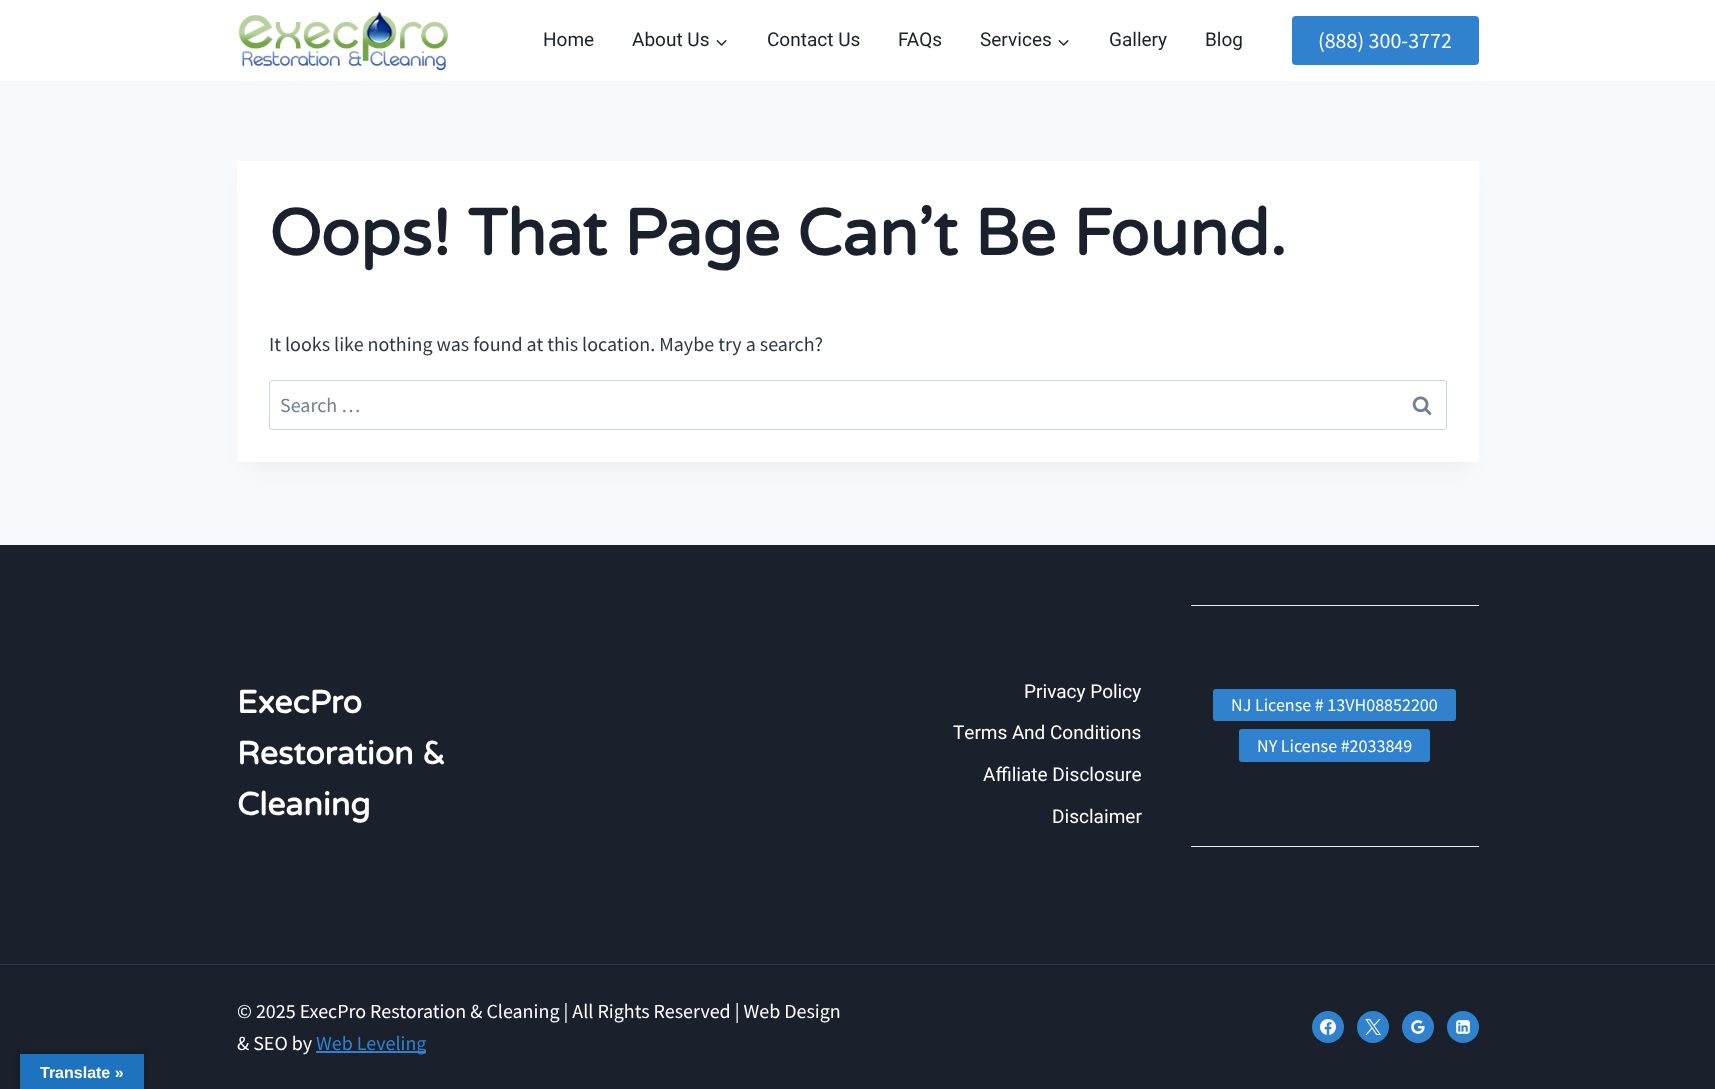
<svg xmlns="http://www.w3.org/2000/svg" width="1715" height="1089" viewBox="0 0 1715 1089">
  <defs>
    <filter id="blur1" x="-50%" y="-200%" width="200%" height="500%"><feGaussianBlur stdDeviation="12.5"/></filter>
    <filter id="blur2" x="-50%" y="-200%" width="200%" height="500%"><feGaussianBlur stdDeviation="4.5"/></filter>
  </defs>
  <rect width="100%" height="100%" fill="#f7fafc"/>
  <rect x="0" y="0" width="1715" height="81" fill="#ffffff"/>
  <image x="238" y="10" width="210" height="61" href="img1.png"/>
  <text x="543" y="46" font-family="Heebo" font-size="19" fill="#1a202c">Home</text>
  <text x="632" y="46" font-family="Heebo" font-size="19" fill="#1a202c">About Us</text>
  <image x="716" y="40" width="11" height="6" href="img2.png"/>
  <text x="767" y="46" font-family="Heebo" font-size="19" fill="#1a202c">Contact Us</text>
  <text x="898" y="46" font-family="Heebo" font-size="19" fill="#1a202c">FAQs</text>
  <text x="980" y="46" font-family="Heebo" font-size="19" fill="#1a202c">Services</text>
  <image x="1058" y="40" width="11" height="6" href="img2.png"/>
  <text x="1109" y="46" font-family="Heebo" font-size="19" fill="#1a202c">Gallery</text>
  <text x="1205" y="46" font-family="Heebo" font-size="19" fill="#1a202c">Blog</text>
  <rect x="1292" y="16" width="187" height="49" rx="4" fill="#3182ce"/>
  <text x="1318" y="48" font-family="Source Sans Pro" font-size="22" fill="#ffffff">(888) 300-3772</text>
  <rect x="247" y="186" width="1222" height="281" fill="#000000" fill-opacity="0.05" filter="url(#blur1)"/>
  <rect x="237" y="161" width="1242" height="301" rx="4" fill="#ffffff"/>
  <text x="269" y="255" font-family="Varela Round" font-size="65" font-weight="bold" fill="#1a202c">Oops! That Page Can’t Be Found.</text>
  <text x="269" y="351" font-family="Source Sans Pro" font-size="20" fill="#2d3748">It looks like nothing was found at this location. Maybe try a search?</text>
  <rect x="269.5" y="380.5" width="1177" height="49" rx="2.5" fill="none" stroke="#cbd5e0"/>
  <text x="280" y="412" font-family="Source Sans Pro" font-size="20" fill="#718096">Search …</text>
  <image x="1412" y="396" width="20" height="19" href="img3.png"/>
  <rect x="0" y="545" width="1715" height="544" fill="#1a202c"/>
  <text x="237" y="713" font-family="Varela Round" font-size="32" font-weight="bold" fill="#ffffff">ExecPro</text>
  <text x="237" y="764" font-family="Varela Round" font-size="32" font-weight="bold" fill="#ffffff">Restoration &amp;</text>
  <text x="237" y="815" font-family="Varela Round" font-size="32" font-weight="bold" fill="#ffffff">Cleaning</text>
  <text x="1024" y="698" font-family="Heebo" font-size="19" fill="#ffffff">Privacy Policy</text>
  <text x="953" y="739" font-family="Heebo" font-size="19" fill="#ffffff">Terms And Conditions</text>
  <text x="983" y="781" font-family="Heebo" font-size="19" fill="#ffffff">Affiliate Disclosure</text>
  <text x="1052" y="823" font-family="Heebo" font-size="19" fill="#ffffff">Disclaimer</text>
  <rect x="1191" y="605" width="288" height="1" fill="#eeeeee"/>
  <rect x="1213" y="689" width="243" height="32" rx="3" fill="#3182ce"/>
  <text x="1231" y="711" font-family="Source Sans Pro" font-size="18" fill="#ffffff">NJ License # 13VH08852200</text>
  <rect x="1239" y="729" width="191" height="33" rx="3" fill="#3182ce"/>
  <text x="1257" y="752" font-family="Source Sans Pro" font-size="18" fill="#ffffff">NY License #2033849</text>
  <rect x="1191" y="846" width="288" height="1" fill="#eeeeee"/>
  <rect x="0" y="964" width="1715" height="1" fill="#2d3748"/>
  <text x="237" y="1018" font-family="Source Sans Pro" font-size="20" fill="#ffffff">© 2025 ExecPro Restoration &amp; Cleaning | All Rights Reserved | Web Design</text>
  <text x="237" y="1050" font-family="Source Sans Pro" font-size="20" fill="#ffffff">&amp; SEO by</text>
  <rect x="316" y="1051" width="110" height="2" fill="#3182ce"/>
  <text x="316" y="1050" font-family="Source Sans Pro" font-size="20" fill="#3182ce">Web Leveling</text>
  <circle cx="1328" cy="1027" r="16" fill="#3182ce"/>
  <image x="1320" y="1019" width="16" height="16" href="img4.png"/>
  <circle cx="1373" cy="1027" r="16" fill="#3182ce"/>
  <image x="1365" y="1019" width="16" height="16" href="img5.png"/>
  <circle cx="1418" cy="1027" r="16" fill="#3182ce"/>
  <image x="1411" y="1020" width="14" height="14" href="img6.png"/>
  <circle cx="1463" cy="1027" r="16" fill="#3182ce"/>
  <image x="1456" y="1020" width="14" height="14" href="img7.png"/>
  <rect x="20" y="1054" width="124" height="35" fill="#000000" fill-opacity="0.3" filter="url(#blur2)"/>
  <rect x="20" y="1054" width="124" height="35" fill="#1e73be"/>
  <text x="40" y="1078" font-family="Liberation Sans" font-size="16" font-weight="bold" fill="#ffffff">Translate »</text>
</svg>
